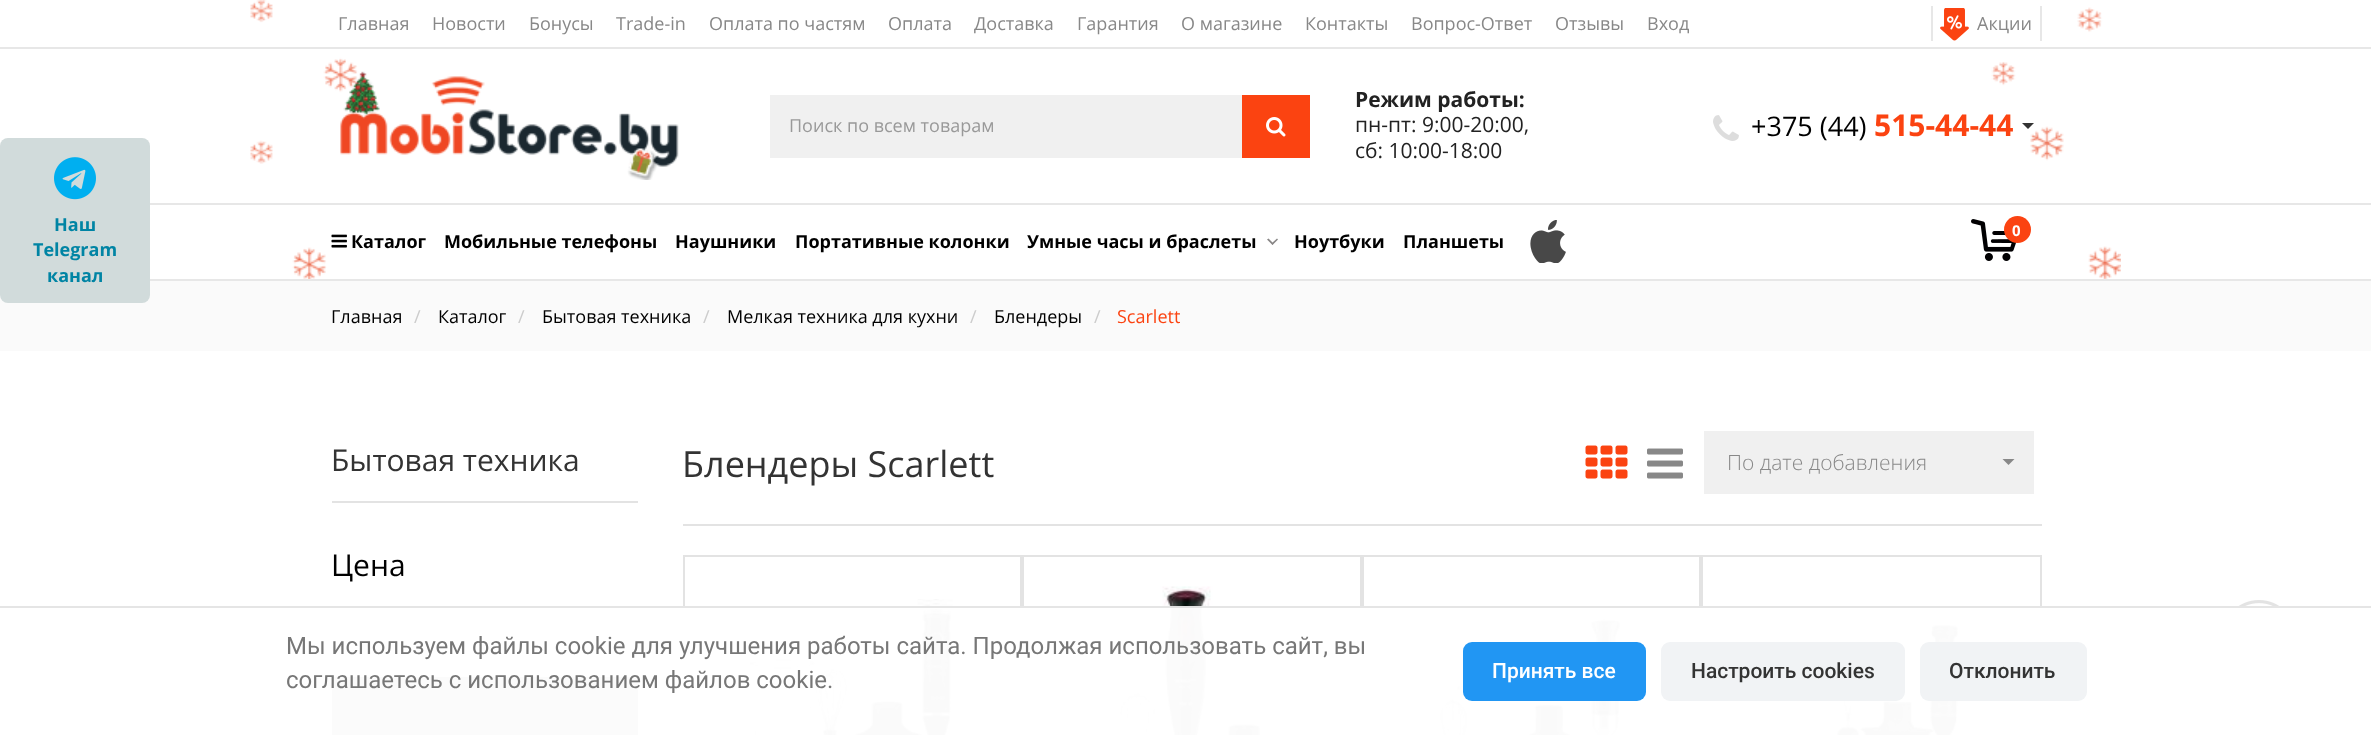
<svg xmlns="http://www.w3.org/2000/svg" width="2371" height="735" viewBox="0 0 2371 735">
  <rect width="100%" height="100%" fill="#ffffff"/>
  <rect x="0" y="281" width="2371" height="70" fill="#fafafa"/>
  <rect x="0" y="138" width="150" height="165" rx="8" fill="#d1dbdb"/>
  <image x="54" y="157" width="42" height="43" href="img1.png"/>
  <text x="54" y="231" font-family="Open Sans" font-size="18" font-weight="bold" fill="#0084a4">Наш</text>
  <text x="33" y="256" font-family="Open Sans" font-size="18" font-weight="bold" fill="#0084a4">Telegram</text>
  <text x="47" y="282" font-family="Open Sans" font-size="18" font-weight="bold" fill="#0084a4">канал</text>
  <image x="250" y="0" width="1871" height="279" href="img2.png"/>
  <rect x="0" y="47" width="2371" height="2" fill="#e7e7e7"/>
  <text x="338" y="30" font-family="Open Sans" font-size="18" fill="#888888">Главная</text>
  <text x="432" y="30" font-family="Open Sans" font-size="18" fill="#888888">Новости</text>
  <text x="529" y="30" font-family="Open Sans" font-size="18" fill="#888888">Бонусы</text>
  <text x="616" y="30" font-family="Open Sans" font-size="18" fill="#888888">Trade-in</text>
  <text x="709" y="30" font-family="Open Sans" font-size="18" fill="#888888">Оплата по частям</text>
  <text x="888" y="30" font-family="Open Sans" font-size="18" fill="#888888">Оплата</text>
  <text x="974" y="30" font-family="Open Sans" font-size="18" fill="#888888">Доставка</text>
  <text x="1077" y="30" font-family="Open Sans" font-size="18" fill="#888888">Гарантия</text>
  <text x="1181" y="30" font-family="Open Sans" font-size="18" fill="#888888">О магазине</text>
  <text x="1305" y="30" font-family="Open Sans" font-size="18" fill="#888888">Контакты</text>
  <text x="1411" y="30" font-family="Open Sans" font-size="18" fill="#888888">Вопрос-Ответ</text>
  <text x="1555" y="30" font-family="Open Sans" font-size="18" fill="#888888">Отзывы</text>
  <text x="1647" y="30" font-family="Open Sans" font-size="18" fill="#888888">Вход</text>
  <rect x="2040" y="6" width="2" height="35" fill="#e7e7e7"/>
  <rect x="1931" y="6" width="2" height="35" fill="#e7e7e7"/>
  <image x="1940" y="8" width="29" height="33" href="img3.png"/>
  <text x="1977" y="30" font-family="Open Sans" font-size="18" fill="#888888">Акции</text>
  <image x="340" y="71" width="339" height="109" href="img4.png"/>
  <rect x="770" y="95" width="472" height="63" fill="#f0f0f0"/>
  <text x="789" y="132" font-family="Open Sans" font-size="18" fill="#999999">Поиск по всем товарам</text>
  <rect x="1242" y="95" width="68" height="63" fill="#fb4311"/>
  <image x="1266" y="117" width="20" height="20" href="img5.png"/>
  <text x="1355" y="107" font-family="Open Sans" font-size="21" font-weight="bold" fill="#222222">Режим работы:</text>
  <text x="1355" y="132" font-family="Open Sans" font-size="21" fill="#222222">пн-пт: 9:00-20:00,</text>
  <text x="1355" y="158" font-family="Open Sans" font-size="21" fill="#222222">сб: 10:00-18:00</text>
  <image x="1713" y="115" width="26" height="26" href="img6.png"/>
  <text x="1751" y="136" font-family="Open Sans" font-size="27" fill="#000000">+375 (44)</text>
  <text x="1874" y="136" font-family="Open Sans" font-size="30" font-weight="bold" fill="#fb4311">515-44-44</text>
  <path d="M2022 123H2034L2028 129Z" fill="#333333"/>
  <rect x="150" y="203" width="2221" height="2" fill="#e7e7e7"/>
  <rect x="150" y="279" width="2221" height="2" fill="#e7e7e7"/>
  <image x="1530" y="220" width="36" height="43" href="img7.png"/>
  <image x="1971" y="219" width="46" height="42" href="img8.png"/>
  <circle cx="2017.5" cy="229.5" r="13.5" fill="#fb4311"/>
  <text x="2012" y="236" font-family="Open Sans" font-size="15" font-weight="bold" fill="#ffffff">0</text>
  <image x="331" y="234" width="16" height="14" href="img9.png"/>
  <text x="351" y="248" font-family="Open Sans" font-size="18" font-weight="bold" fill="#000000">Каталог</text>
  <text x="444" y="248" font-family="Open Sans" font-size="18" font-weight="bold" fill="#000000">Мобильные телефоны</text>
  <text x="675" y="248" font-family="Open Sans" font-size="18" font-weight="bold" fill="#000000">Наушники</text>
  <text x="795" y="248" font-family="Open Sans" font-size="18" font-weight="bold" fill="#000000">Портативные колонки</text>
  <text x="1027" y="248" font-family="Open Sans" font-size="18" font-weight="bold" fill="#000000">Умные часы и браслеты</text>
  <path d="M1272.5 245L1267 239.5L1268.5 238.5L1273.5 243.5Z" fill="#888686"/>
  <path d="M1272.5 245L1271.5 243.5L1277 238.5L1278 239.5Z" fill="#888686"/>
  <text x="1294" y="248" font-family="Open Sans" font-size="18" font-weight="bold" fill="#000000">Ноутбуки</text>
  <text x="1403" y="248" font-family="Open Sans" font-size="18" font-weight="bold" fill="#000000">Планшеты</text>
  <text x="331" y="323" font-family="Open Sans" font-size="18" fill="#000000">Главная</text>
  <text x="414" y="323" font-family="Open Sans" font-size="18" fill="#cccccc">/</text>
  <text x="438" y="323" font-family="Open Sans" font-size="18" fill="#000000">Каталог</text>
  <text x="518" y="323" font-family="Open Sans" font-size="18" fill="#cccccc">/</text>
  <text x="542" y="323" font-family="Open Sans" font-size="18" fill="#000000">Бытовая техника</text>
  <text x="703" y="323" font-family="Open Sans" font-size="18" fill="#cccccc">/</text>
  <text x="727" y="323" font-family="Open Sans" font-size="18" fill="#000000">Мелкая техника для кухни</text>
  <text x="970" y="323" font-family="Open Sans" font-size="18" fill="#cccccc">/</text>
  <text x="994" y="323" font-family="Open Sans" font-size="18" fill="#000000">Блендеры</text>
  <text x="1094" y="323" font-family="Open Sans" font-size="18" fill="#cccccc">/</text>
  <text x="1117" y="323" font-family="Open Sans" font-size="18" fill="#fb4311">Scarlett</text>
  <text x="331" y="471" font-family="Open Sans" font-size="30" fill="#333333">Бытовая техника</text>
  <rect x="332" y="501" width="306" height="2" fill="#e3e3e3"/>
  <text x="331" y="576" font-family="Open Sans" font-size="30" fill="#000000">Цена</text>
  <rect x="332" y="606" width="120" height="51" fill="#f0f0f0"/>
  <rect x="486" y="606" width="120" height="51" fill="#f0f0f0"/>
  <image x="331" y="676" width="15" height="15" href="img10.png"/>
  <image x="331" y="676" width="15" height="15" href="img11.png"/>
  <rect x="332" y="677" width="306" height="58" fill="#555555"/>
  <text x="682" y="477" font-family="Open Sans" font-size="36" fill="#333333">Блендеры Scarlett</text>
  <image x="1585" y="445" width="43" height="34" href="img12.png"/>
  <image x="1647" y="448" width="36" height="31" href="img13.png"/>
  <rect x="1704" y="431" width="330" height="63" fill="#f0f0f0"/>
  <text x="1727" y="470" font-family="Open Sans" font-size="21" font-weight="300" fill="#888888">По дате добавления</text>
  <path d="M2002.5 459H2014.5L2008.5 465Z" fill="#888888"/>
  <rect x="683" y="524" width="1359" height="2" fill="#e3e3e3"/>
  <rect x="684" y="556" width="337" height="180" fill="none" stroke="#e3e3e3" stroke-width="2"/>
  <image x="750" y="599" width="203" height="136" href="img14.png"/>
  <rect x="1023" y="556" width="338" height="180" fill="none" stroke="#e3e3e3" stroke-width="2"/>
  <image x="1114" y="586" width="169" height="149" href="img15.png"/>
  <rect x="1363" y="556" width="337" height="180" fill="none" stroke="#e3e3e3" stroke-width="2"/>
  <image x="1430" y="610" width="192" height="125" href="img16.png"/>
  <rect x="1702" y="556" width="339" height="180" fill="none" stroke="#e3e3e3" stroke-width="2"/>
  <image x="1780" y="622" width="182" height="113" href="img17.png"/>
  <image x="2222" y="600" width="75" height="75" href="img18.png"/>
  <rect x="331" y="606" width="1966" height="129" fill="#ffffff" fill-opacity="0.98"/>
  <rect x="0" y="606" width="2371" height="2" fill="#000000" fill-opacity="0.1"/>
  <text x="286" y="654" font-family="Roboto" font-size="24" fill="#777777">Мы используем файлы cookie для улучшения работы сайта. Продолжая использовать сайт, вы</text>
  <text x="286" y="688" font-family="Roboto" font-size="24" fill="#777777">соглашаетесь с использованием файлов cookie.</text>
  <rect x="1463" y="642" width="183" height="59" rx="9" fill="#2196f3"/>
  <text x="1492" y="678" font-family="Roboto" font-size="21" font-weight="500" fill="#ffffff">Принять все</text>
  <rect x="1661" y="642" width="244" height="59" rx="9" fill="#f1f3f5"/>
  <text x="1691" y="678" font-family="Roboto" font-size="21" font-weight="500" fill="#333333">Настроить cookies</text>
  <rect x="1920" y="642" width="167" height="59" rx="9" fill="#f1f3f5"/>
  <text x="1949" y="678" font-family="Roboto" font-size="21" font-weight="500" fill="#333333">Отклонить</text>
</svg>
